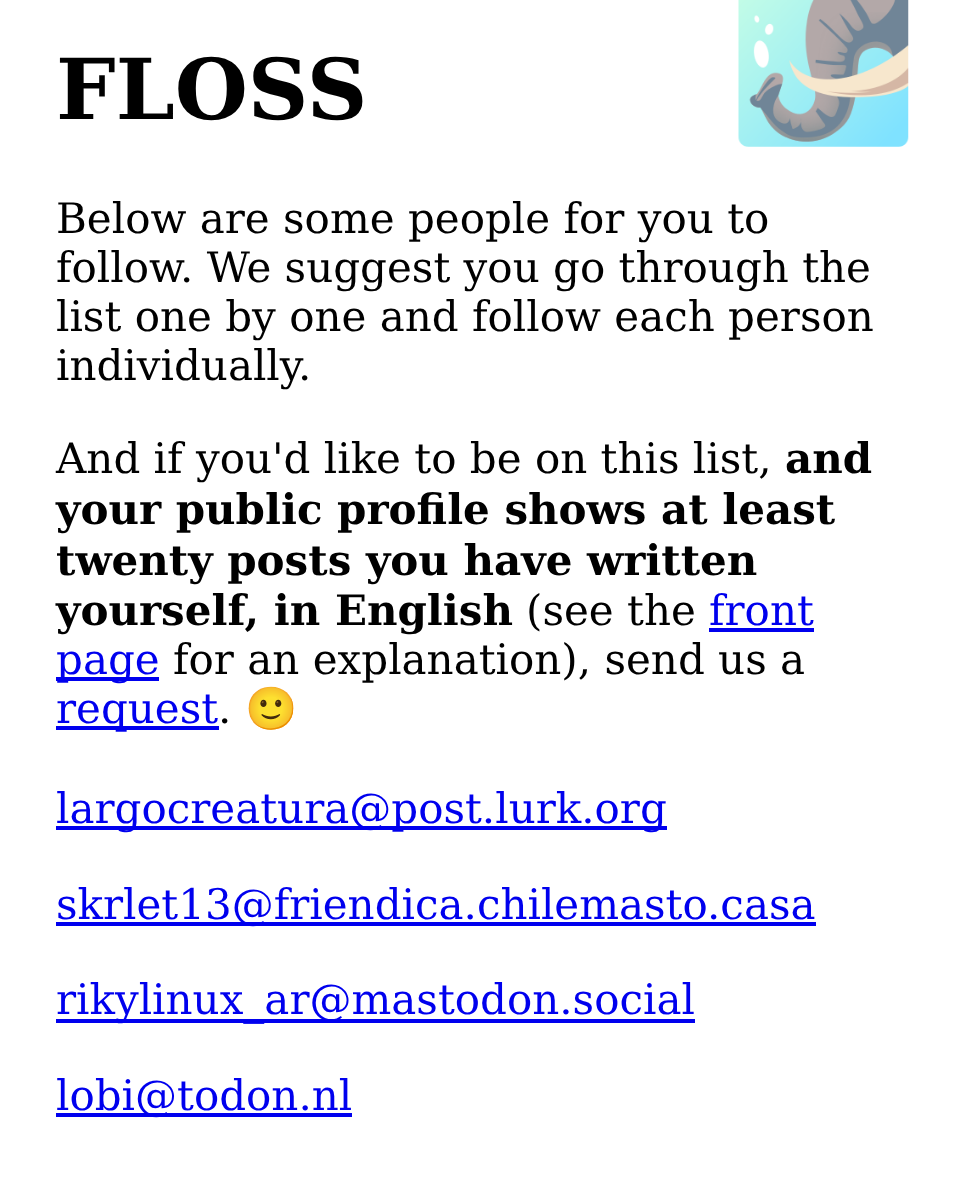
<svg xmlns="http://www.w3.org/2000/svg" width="963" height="1186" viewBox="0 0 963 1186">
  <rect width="100%" height="100%" fill="#ffffff"/>
  <text x="56" y="119" font-family="DejaVu Serif" font-size="84" font-weight="bold" fill="#000000">FLOSS</text>
  <image x="738" y="0" width="171" height="147" href="img1.png"/>
  <text x="56" y="233" font-family="DejaVu Serif" font-size="42" fill="#000000">Below are some people for you to</text>
  <text x="56" y="282" font-family="DejaVu Serif" font-size="42" fill="#000000">follow. We suggest you go through the</text>
  <text x="56" y="331" font-family="DejaVu Serif" font-size="42" fill="#000000">list one by one and follow each person</text>
  <text x="56" y="380" font-family="DejaVu Serif" font-size="42" fill="#000000">individually.</text>
  <text x="56" y="473" font-family="DejaVu Serif" font-size="42" fill="#000000">And if you'd like to be on this list,</text>
  <text x="785" y="473" font-family="DejaVu Serif" font-size="42" font-weight="bold" fill="#000000">and</text>
  <text x="56" y="524" font-family="DejaVu Serif" font-size="42" font-weight="bold" fill="#000000">your public profile shows at least</text>
  <text x="56" y="575" font-family="DejaVu Serif" font-size="42" font-weight="bold" fill="#000000">twenty posts you have written</text>
  <text x="56" y="625" font-family="DejaVu Serif" font-size="42" font-weight="bold" fill="#000000">yourself, in English</text>
  <text x="526" y="625" font-family="DejaVu Serif" font-size="42" fill="#000000">(see the</text>
  <text x="709" y="625" font-family="DejaVu Serif" font-size="42" fill="#0000ee">front</text>
  <rect x="709" y="628" width="105" height="4" fill="#0000ee"/>
  <rect x="56" y="677" width="103" height="4" fill="#0000ee"/>
  <text x="56" y="674" font-family="DejaVu Serif" font-size="42" fill="#0000ee">page</text>
  <text x="173" y="674" font-family="DejaVu Serif" font-size="42" fill="#000000">for an explanation), send us a</text>
  <rect x="56" y="726" width="163" height="4" fill="#0000ee"/>
  <text x="56" y="723" font-family="DejaVu Serif" font-size="42" fill="#0000ee">request</text>
  <text x="218" y="723" font-family="DejaVu Serif" font-size="42" fill="#000000">.</text>
  <text x="245" y="723" font-family="Noto Color Emoji" font-size="42" fill="#000000">🙂</text>
  <rect x="56" y="826" width="611" height="4" fill="#0000ee"/>
  <text x="56" y="823" font-family="DejaVu Serif" font-size="42" fill="#0000ee">largocreatura@post.lurk.org</text>
  <rect x="56" y="922" width="760" height="4" fill="#0000ee"/>
  <text x="56" y="919" font-family="DejaVu Serif" font-size="42" fill="#0000ee">skrlet13@friendica.chilemasto.casa</text>
  <rect x="56" y="1019" width="639" height="4" fill="#0000ee"/>
  <text x="56" y="1014" font-family="DejaVu Serif" font-size="42" fill="#0000ee">rikylinux_ar@mastodon.social</text>
  <rect x="56" y="1113" width="296" height="4" fill="#0000ee"/>
  <text x="56" y="1110" font-family="DejaVu Serif" font-size="42" fill="#0000ee">lobi@todon.nl</text>
</svg>
